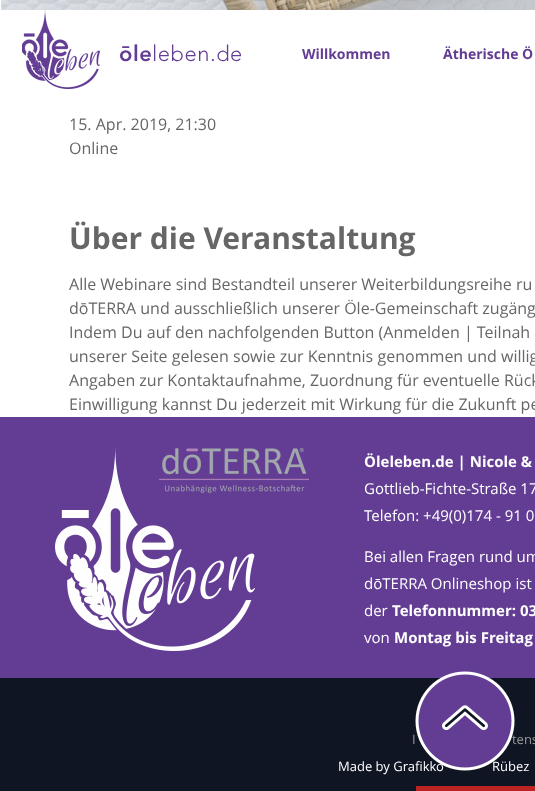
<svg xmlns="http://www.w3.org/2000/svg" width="535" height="791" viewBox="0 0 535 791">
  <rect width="100%" height="100%" fill="#633d94"/>
  <rect x="0" y="0" width="535" height="417" fill="#ffffff"/>
  <image x="1" y="0" width="534" height="10" href="img2.png"/>
  <image x="22" y="9" width="78" height="80" href="img1.png"/>
  <text x="119" y="61" font-family="'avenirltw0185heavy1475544'" font-size="22" font-weight="900" letter-spacing="0.5" fill="#633d94">ōle</text>
  <text x="152" y="61" font-family="'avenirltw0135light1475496'" font-size="22" font-weight="300" letter-spacing="0.5" fill="#633d94">leben.de</text>
  <text x="302" y="59" font-family="Open Sans" font-size="14" font-weight="bold" fill="#633d94">Willkommen</text>
  <text x="443" y="59" font-family="Open Sans" font-size="14" font-weight="bold" fill="#633d94">Ätherische Ö</text>
  <text x="69" y="130" font-family="Open Sans" font-size="16" fill="#666666">15. Apr. 2019, 21:30</text>
  <text x="69" y="154" font-family="Open Sans" font-size="16" fill="#666666">Online</text>
  <text x="69" y="249" font-family="Open Sans" font-size="30" font-weight="bold" fill="#666666">Über die Veranstaltung</text>
  <text x="69" y="290" font-family="Open Sans" font-size="16" fill="#666666">Alle Webinare sind Bestandteil unserer Weiterbildungsreihe ru</text>
  <text x="69" y="314" font-family="Open Sans" font-size="16" fill="#666666">dōTERRA und ausschließlich unserer Öle-Gemeinschaft zugäng</text>
  <text x="69" y="338" font-family="Open Sans" font-size="16" fill="#666666">Indem Du auf den nachfolgenden Button (Anmelden | Teilnah</text>
  <text x="69" y="362" font-family="Open Sans" font-size="16" fill="#666666">unserer Seite gelesen sowie zur Kenntnis genommen und willig</text>
  <text x="69" y="386" font-family="Open Sans" font-size="16" fill="#666666">Angaben zur Kontaktaufnahme, Zuordnung für eventuelle Rück</text>
  <text x="69" y="410" font-family="Open Sans" font-size="16" fill="#666666">Einwilligung kannst Du jederzeit mit Wirkung für die Zukunft pe</text>
  <image x="55" y="448" width="200" height="203" href="img3.png"/>
  <image x="159" y="448" width="150" height="45" href="img4.png"/>
  <text x="364" y="467" font-family="Open Sans" font-size="15" font-weight="bold" fill="#ffffff">Öleleben.de | Nicole &amp;</text>
  <text x="364" y="494" font-family="Open Sans" font-size="15" fill="#ffffff">Gottlieb-Fichte-Straße 17</text>
  <text x="364" y="521" font-family="Open Sans" font-size="15" fill="#ffffff">Telefon: +49(0)174 - 91 0</text>
  <text x="364" y="562" font-family="Open Sans" font-size="15" fill="#ffffff">Bei allen Fragen rund um</text>
  <text x="364" y="589" font-family="Open Sans" font-size="15" fill="#ffffff">dōTERRA Onlineshop ist</text>
  <text x="364" y="616" font-family="Open Sans" font-size="15" fill="#ffffff">der</text>
  <text x="392" y="616" font-family="Open Sans" font-size="15" font-weight="bold" fill="#ffffff">Telefonnummer: 03</text>
  <text x="364" y="643" font-family="Open Sans" font-size="15" fill="#ffffff">von</text>
  <text x="394" y="643" font-family="Open Sans" font-size="15" font-weight="bold" fill="#ffffff">Montag bis Freitag</text>
  <rect x="0" y="678" width="535" height="113" fill="#101523"/>
  <text x="412" y="744" font-family="Open Sans" font-size="13" fill="#999999">I</text>
  <text x="512" y="744" font-family="Open Sans" font-size="13" fill="#999999">tens</text>
  <text x="338" y="771" font-family="Open Sans" font-size="13" fill="#ffffff">Made by Grafikko</text>
  <text x="492" y="771" font-family="Open Sans" font-size="13" fill="#ffffff">Rübez</text>
  <rect x="416" y="786" width="119" height="5" fill="#bd2323"/>
  <image x="415" y="671" width="100" height="100" href="img5.png"/>
</svg>
